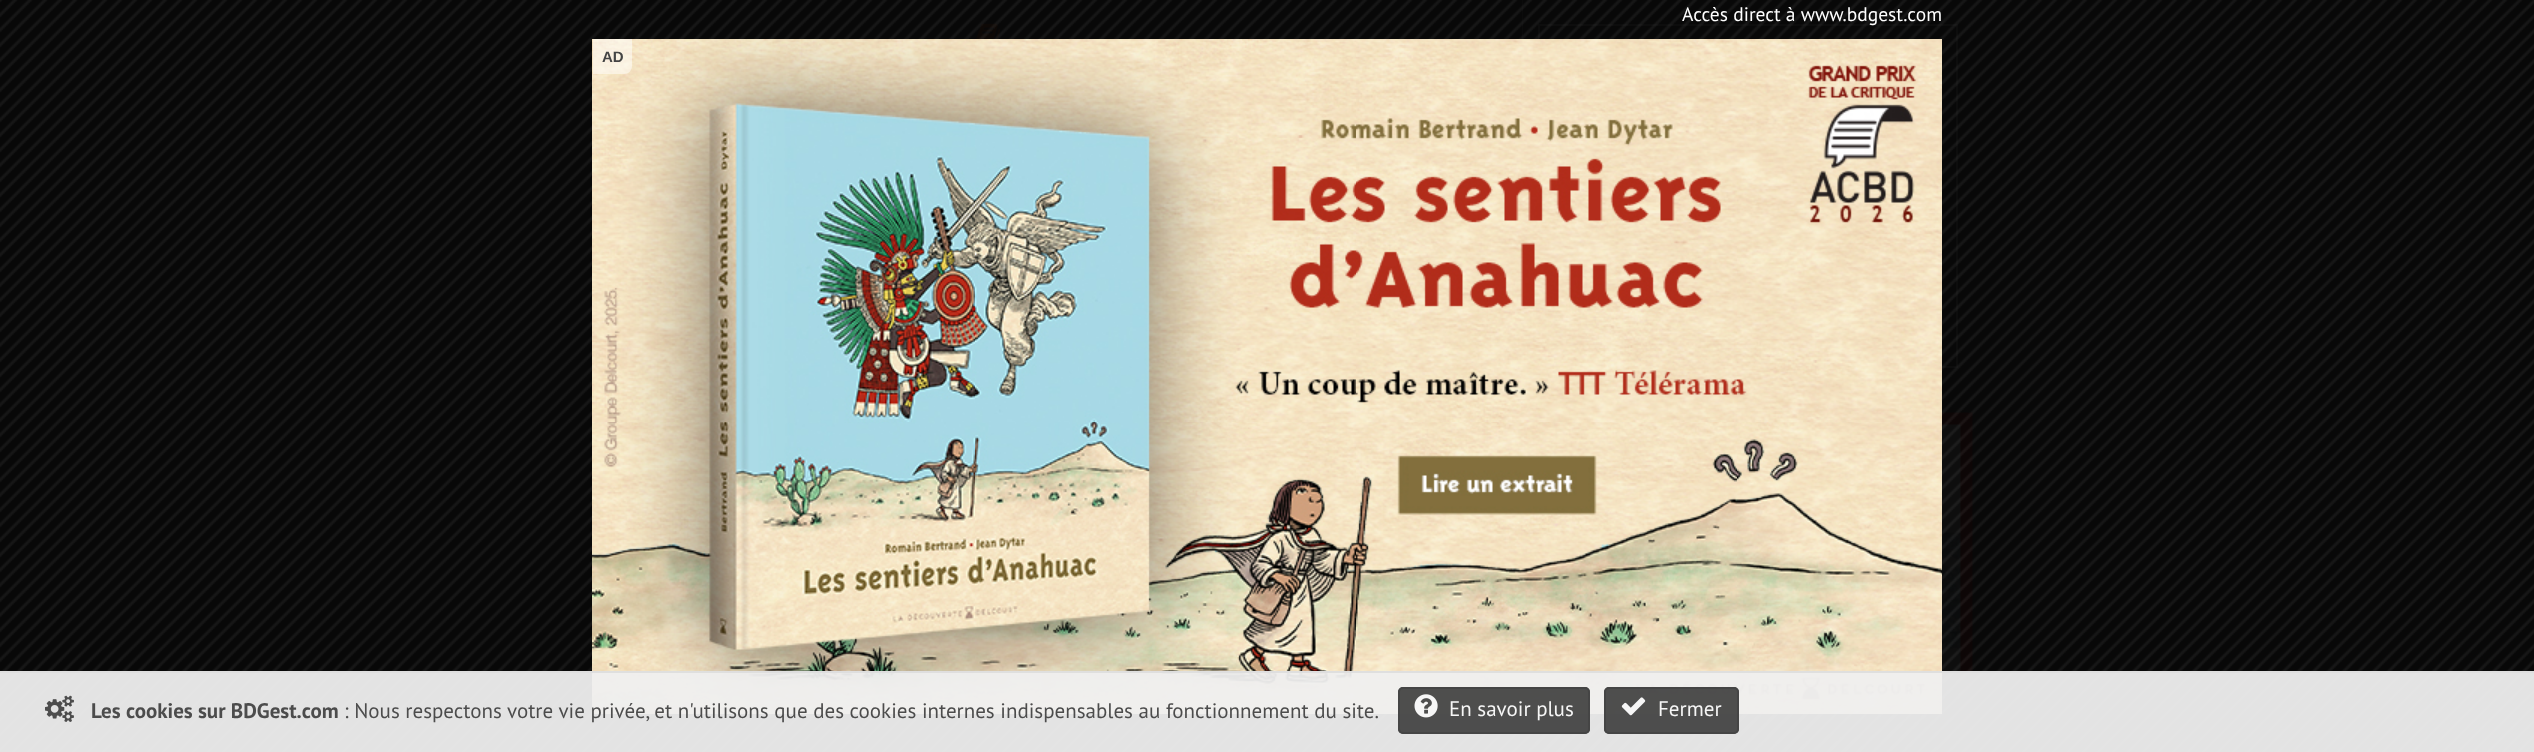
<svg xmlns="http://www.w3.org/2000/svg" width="2534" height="752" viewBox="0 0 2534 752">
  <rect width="100%" height="100%" fill="#ffffff"/>
  <image x="0" y="0" width="2534" height="752" href="img1.png"/>
  <image x="577" y="0" width="36" height="14" href="img2.png"/>
  <image x="976" y="23" width="24" height="16" href="img3.png"/>
  <image x="1188" y="22" width="26" height="17" href="img4.png"/>
  <image x="1522" y="0" width="1" height="39" href="img5.png"/>
  <image x="1537" y="0" width="31" height="4" href="img6.png"/>
  <rect x="1539" y="25" width="418" height="342" fill="none" stroke="#dddddd" stroke-width="2"/>
  <image x="1522" y="412" width="451" height="340" href="img7.png"/>
  <image x="0" y="0" width="2534" height="752" href="img8.png"/>
  <text x="1682" y="21" font-family="PT Sans" font-size="19.5" fill="#ffffff">Accès direct à www.bdgest.com</text>
  <image x="592" y="39" width="1350" height="675" href="img9.png"/>
  <path d="M593 39H632V66C632 70.5 628.5 74 624 74H593Z" fill="#ffffff" fill-opacity="0.5"/>
  <text x="602" y="62" font-family="Liberation Sans" font-size="15" font-weight="bold" fill="#444444">AD</text>
  <rect x="0" y="671" width="2534" height="81" fill="#efefef" fill-opacity="0.95"/>
  <rect x="0" y="671" width="2534" height="2" fill="#dddddd" fill-opacity="0.95"/>
  <image x="45" y="695" width="29" height="27" href="img10.png"/>
  <text x="91" y="718" font-family="PT Sans" font-size="21" font-weight="bold" fill="#4c4c4c">Les cookies sur BDGest.com</text>
  <text x="344" y="718" font-family="PT Sans" font-size="21" fill="#4c4c4c">: Nous respectons votre vie privée, et n'utilisons que des cookies internes indispensables au fonctionnement du site.</text>
  <rect x="1398" y="687" width="192" height="47" rx="5" fill="#444444" fill-opacity="0.95"/>
  <rect x="1399" y="688" width="190" height="45" rx="4" fill="none" stroke="#444444" stroke-opacity="0.95" stroke-width="2"/>
  <image x="1414" y="694" width="24" height="24" href="img11.png"/>
  <text x="1449" y="716" font-family="PT Sans" font-size="21" fill="#f6f6f6">En savoir plus</text>
  <rect x="1604" y="687" width="135" height="47" rx="5" fill="#444444" fill-opacity="0.95"/>
  <rect x="1605" y="688" width="133" height="45" rx="4" fill="none" stroke="#444444" stroke-opacity="0.95" stroke-width="2"/>
  <image x="1621" y="697" width="25" height="19" href="img12.png"/>
  <text x="1658" y="716" font-family="PT Sans" font-size="21" fill="#f6f6f6">Fermer</text>
</svg>
